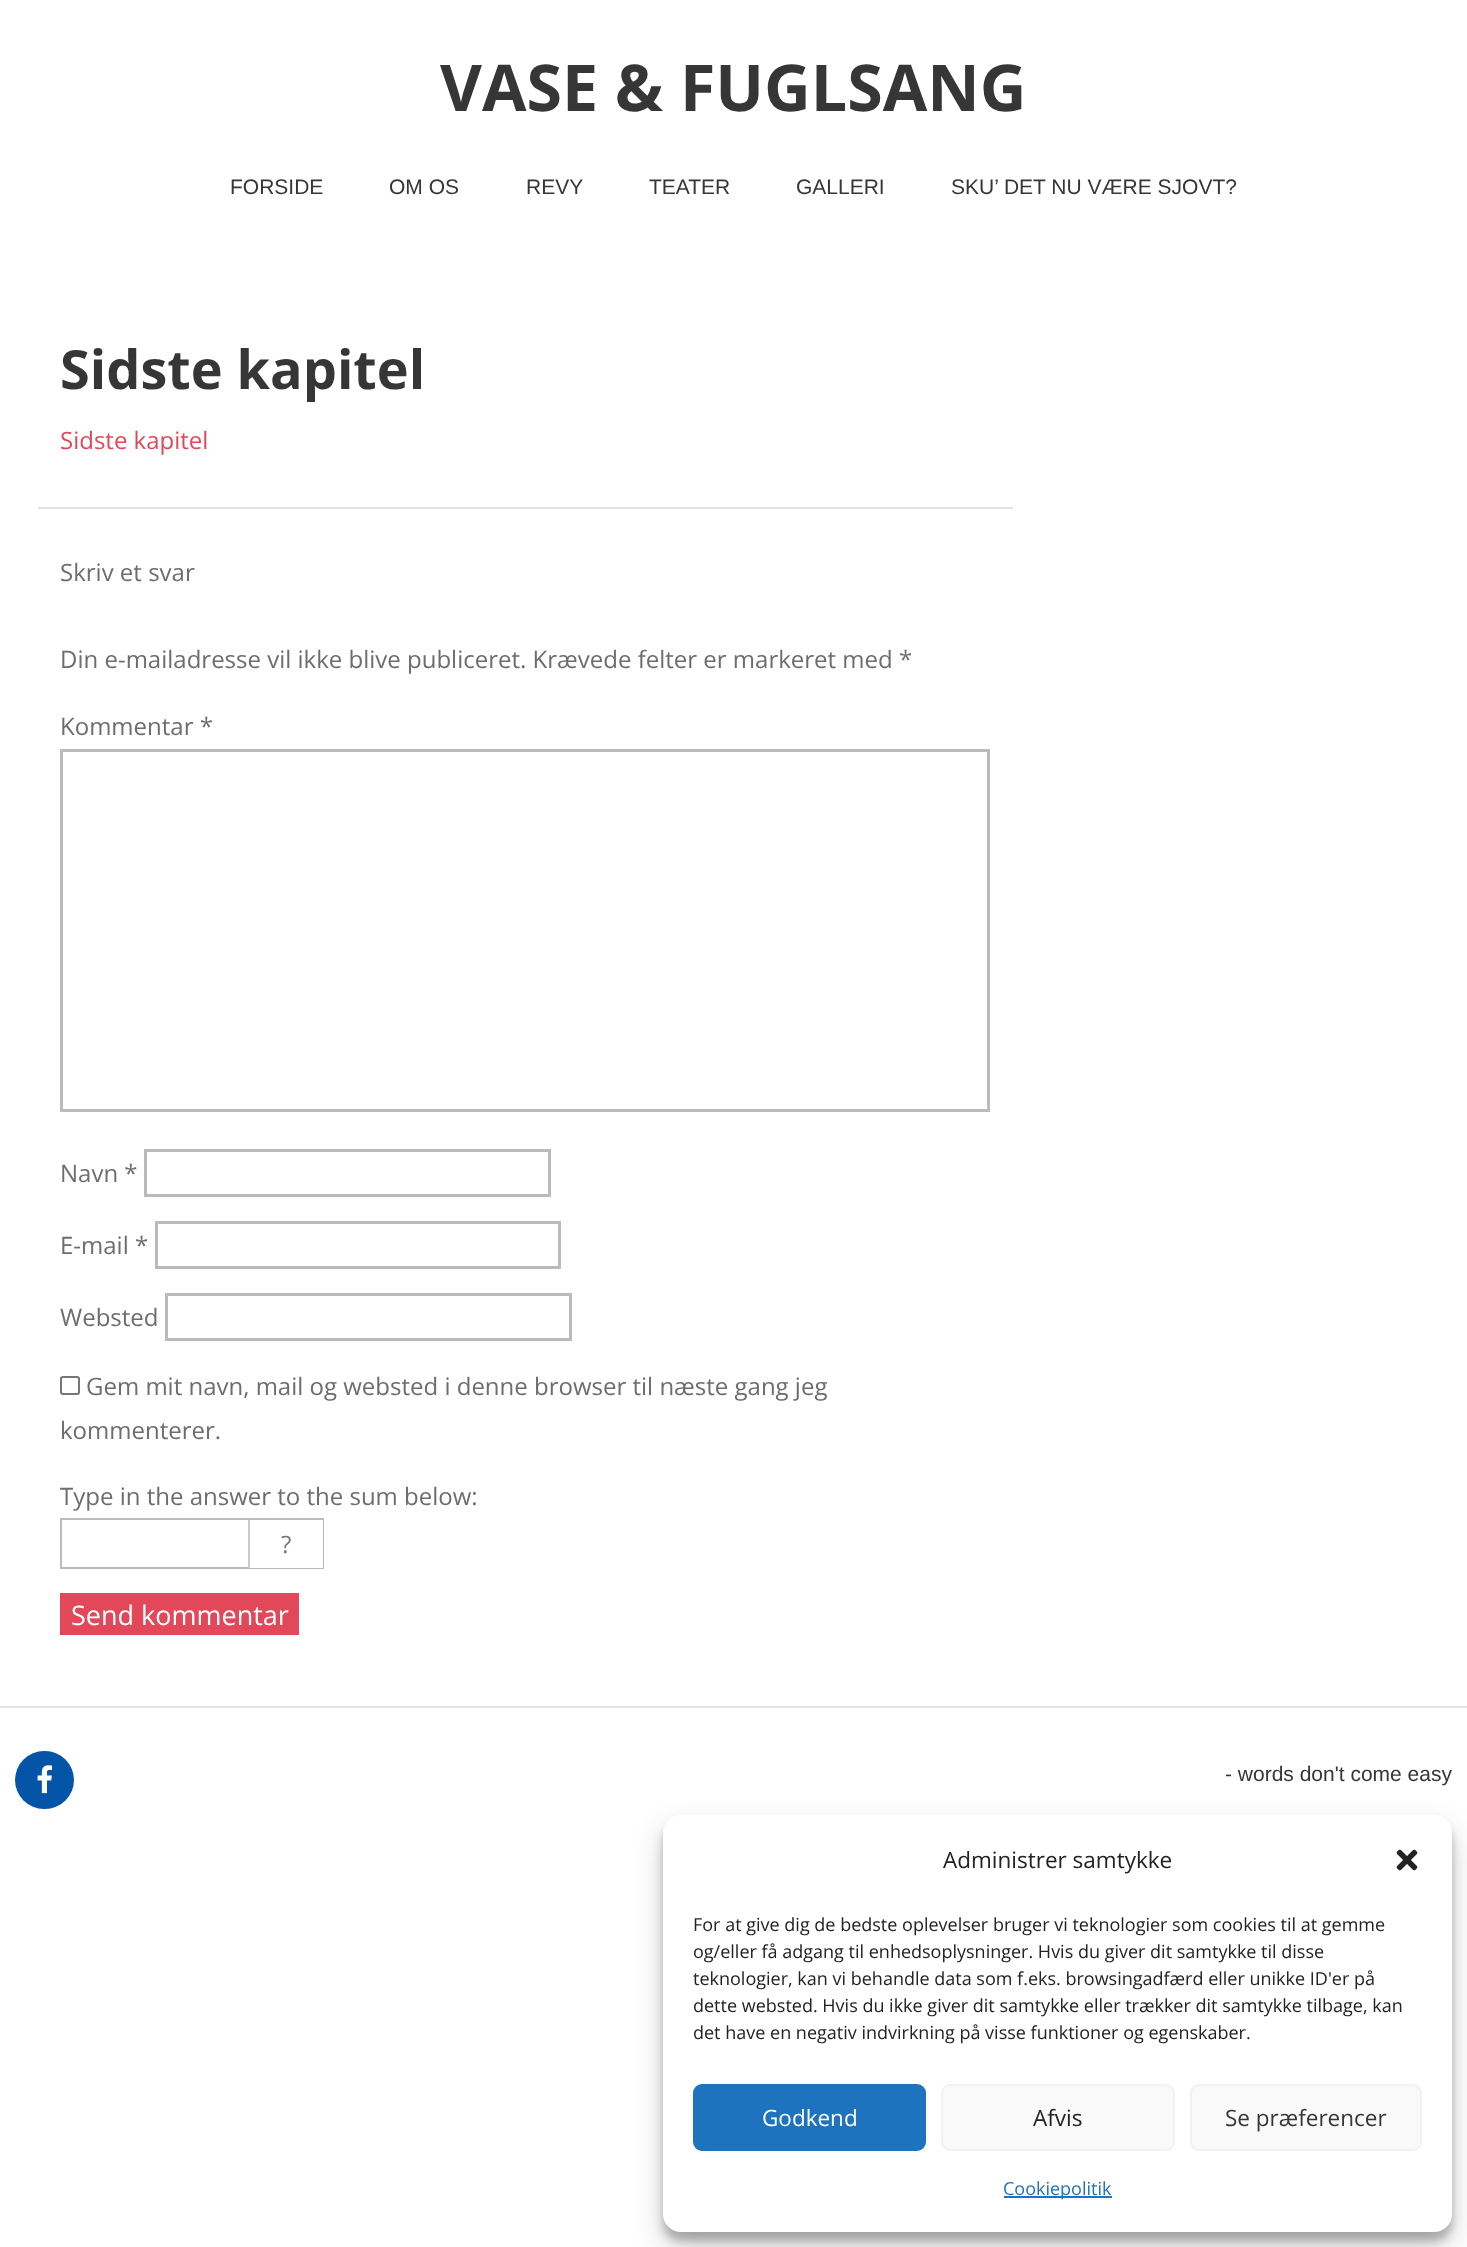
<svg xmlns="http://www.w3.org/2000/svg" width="1467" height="2247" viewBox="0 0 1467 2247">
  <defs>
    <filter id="blur1" x="-50%" y="-200%" width="200%" height="500%"><feGaussianBlur stdDeviation="4.5"/></filter>
    <filter id="blur2" x="-50%" y="-200%" width="200%" height="500%"><feGaussianBlur stdDeviation="15"/></filter>
  </defs>
  <rect width="100%" height="100%" fill="#ffffff"/>
  <text x="440" y="111" font-family="Open Sans" font-size="64.5" font-weight="bold" fill="#363636">VASE &amp; FUGLSANG</text>
  <text x="230" y="194" font-family="Liberation Sans" font-size="21" fill="#363636">FORSIDE</text>
  <text x="389" y="194" font-family="Liberation Sans" font-size="21" fill="#363636">OM OS</text>
  <text x="526" y="194" font-family="Liberation Sans" font-size="21" fill="#363636">REVY</text>
  <text x="649" y="194" font-family="Liberation Sans" font-size="21" fill="#363636">TEATER</text>
  <text x="796" y="194" font-family="Liberation Sans" font-size="21" fill="#363636">GALLERI</text>
  <text x="951" y="194" font-family="Liberation Sans" font-size="21" fill="#363636">SKU’ DET NU VÆRE SJOVT?</text>
  <rect x="38" y="507" width="975" height="2" fill="#e2e2e2"/>
  <text x="60" y="389" font-family="Open Sans" font-size="54" font-weight="bold" fill="#363636">Sidste kapitel</text>
  <text x="60" y="449" font-family="Open Sans" font-size="24" fill="#e3485a">Sidste kapitel</text>
  <text x="60" y="581" font-family="Open Sans" font-size="24" fill="#6d6d6d">Skriv et svar</text>
  <text x="60" y="668" font-family="Open Sans" font-size="24" fill="#6d6d6d">Din e-mailadresse vil ikke blive publiceret. Krævede felter er markeret med *</text>
  <text x="60" y="735" font-family="Open Sans" font-size="24" fill="#6d6d6d">Kommentar *</text>
  <rect x="61.5" y="750.5" width="927" height="360" fill="none" stroke="#bbbbbb" stroke-width="3"/>
  <text x="60" y="1182" font-family="Open Sans" font-size="24" fill="#6d6d6d">Navn *</text>
  <rect x="145.5" y="1150.5" width="404" height="45" fill="none" stroke="#bbbbbb" stroke-width="3"/>
  <text x="60" y="1254" font-family="Open Sans" font-size="24" fill="#6d6d6d">E-mail *</text>
  <rect x="156.5" y="1222.5" width="403" height="45" fill="none" stroke="#bbbbbb" stroke-width="3"/>
  <text x="60" y="1326" font-family="Open Sans" font-size="24" fill="#6d6d6d">Websted</text>
  <rect x="166.5" y="1294.5" width="404" height="45" fill="none" stroke="#bbbbbb" stroke-width="3"/>
  <rect x="61" y="1377" width="18" height="17" rx="2" fill="none" stroke="#767676" stroke-width="2"/>
  <text x="86" y="1395" font-family="Open Sans" font-size="24" fill="#6d6d6d">Gem mit navn, mail og websted i denne browser til næste gang jeg</text>
  <text x="60" y="1439" font-family="Open Sans" font-size="24" fill="#6d6d6d">kommenterer.</text>
  <text x="60" y="1505" font-family="Open Sans" font-size="24" fill="#6d6d6d">Type in the answer to the sum below:</text>
  <rect x="61" y="1519" width="262" height="49" fill="none" stroke="#bbbbbb" stroke-width="2"/>
  <rect x="250" y="1520" width="73" height="48" fill="#ffffff"/>
  <rect x="248" y="1520" width="2" height="48" fill="#cccccc"/>
  <text x="281" y="1553" font-family="Open Sans" font-size="24" fill="#757575">?</text>
  <rect x="60" y="1593" width="239" height="42" fill="#e3485a"/>
  <text x="71" y="1625" font-family="Open Sans" font-size="27" fill="#ffffff">Send kommentar</text>
  <rect x="0" y="1706" width="1467" height="2" fill="#e1e1e1"/>
  <rect x="15" y="1751" width="59" height="58" rx="29" fill="#0454a8"/>
  <image x="37" y="1765" width="16" height="29" href="img1.png"/>
  <text x="1225" y="1781" font-family="Liberation Sans" font-size="21" fill="#363636">- words don't come easy</text>
  <rect x="663" y="1824" width="789" height="417" rx="18" fill="#000000" fill-opacity="0.23" filter="url(#blur1)"/>
  <rect x="663" y="1830" width="789" height="417" rx="18" fill="#000000" fill-opacity="0.19" filter="url(#blur2)"/>
  <rect x="663" y="1815" width="789" height="417" rx="18" fill="#ffffff"/>
  <text x="943" y="1868" font-family="Open Sans" font-size="22.5" fill="#222222">Administrer samtykke</text>
  <image x="1396" y="1849" width="22" height="22" href="img2.png"/>
  <text x="693" y="1931" font-family="Open Sans" font-size="18" fill="#222222">For at give dig de bedste oplevelser bruger vi teknologier som cookies til at gemme</text>
  <text x="693" y="1958" font-family="Open Sans" font-size="18" fill="#222222">og/eller få adgang til enhedsoplysninger. Hvis du giver dit samtykke til disse</text>
  <text x="693" y="1985" font-family="Open Sans" font-size="18" fill="#222222">teknologier, kan vi behandle data som f.eks. browsingadfærd eller unikke ID'er på</text>
  <text x="693" y="2012" font-family="Open Sans" font-size="18" fill="#222222">dette websted. Hvis du ikke giver dit samtykke eller trækker dit samtykke tilbage, kan</text>
  <text x="693" y="2039" font-family="Open Sans" font-size="18" fill="#222222">det have en negativ indvirkning på visse funktioner og egenskaber.</text>
  <rect x="694" y="2085" width="231" height="65" rx="8" fill="#1e73be" stroke="#1e73be" stroke-width="2"/>
  <text x="762" y="2126" font-family="Open Sans" font-size="22.5" fill="#ffffff">Godkend</text>
  <rect x="942" y="2085" width="232" height="65" rx="8" fill="#f9f9f9" stroke="#f2f2f2" stroke-width="2"/>
  <text x="1033" y="2126" font-family="Open Sans" font-size="22.5" fill="#222222">Afvis</text>
  <rect x="1191" y="2085" width="230" height="65" rx="8" fill="#f9f9f9" stroke="#f2f2f2" stroke-width="2"/>
  <text x="1225" y="2126" font-family="Open Sans" font-size="22.5" fill="#363636">Se præferencer</text>
  <rect x="1004" y="2196" width="108" height="2" fill="#1e73be"/>
  <text x="1003" y="2195" font-family="Open Sans" font-size="18" fill="#1e73be">Cookiepolitik</text>
</svg>
